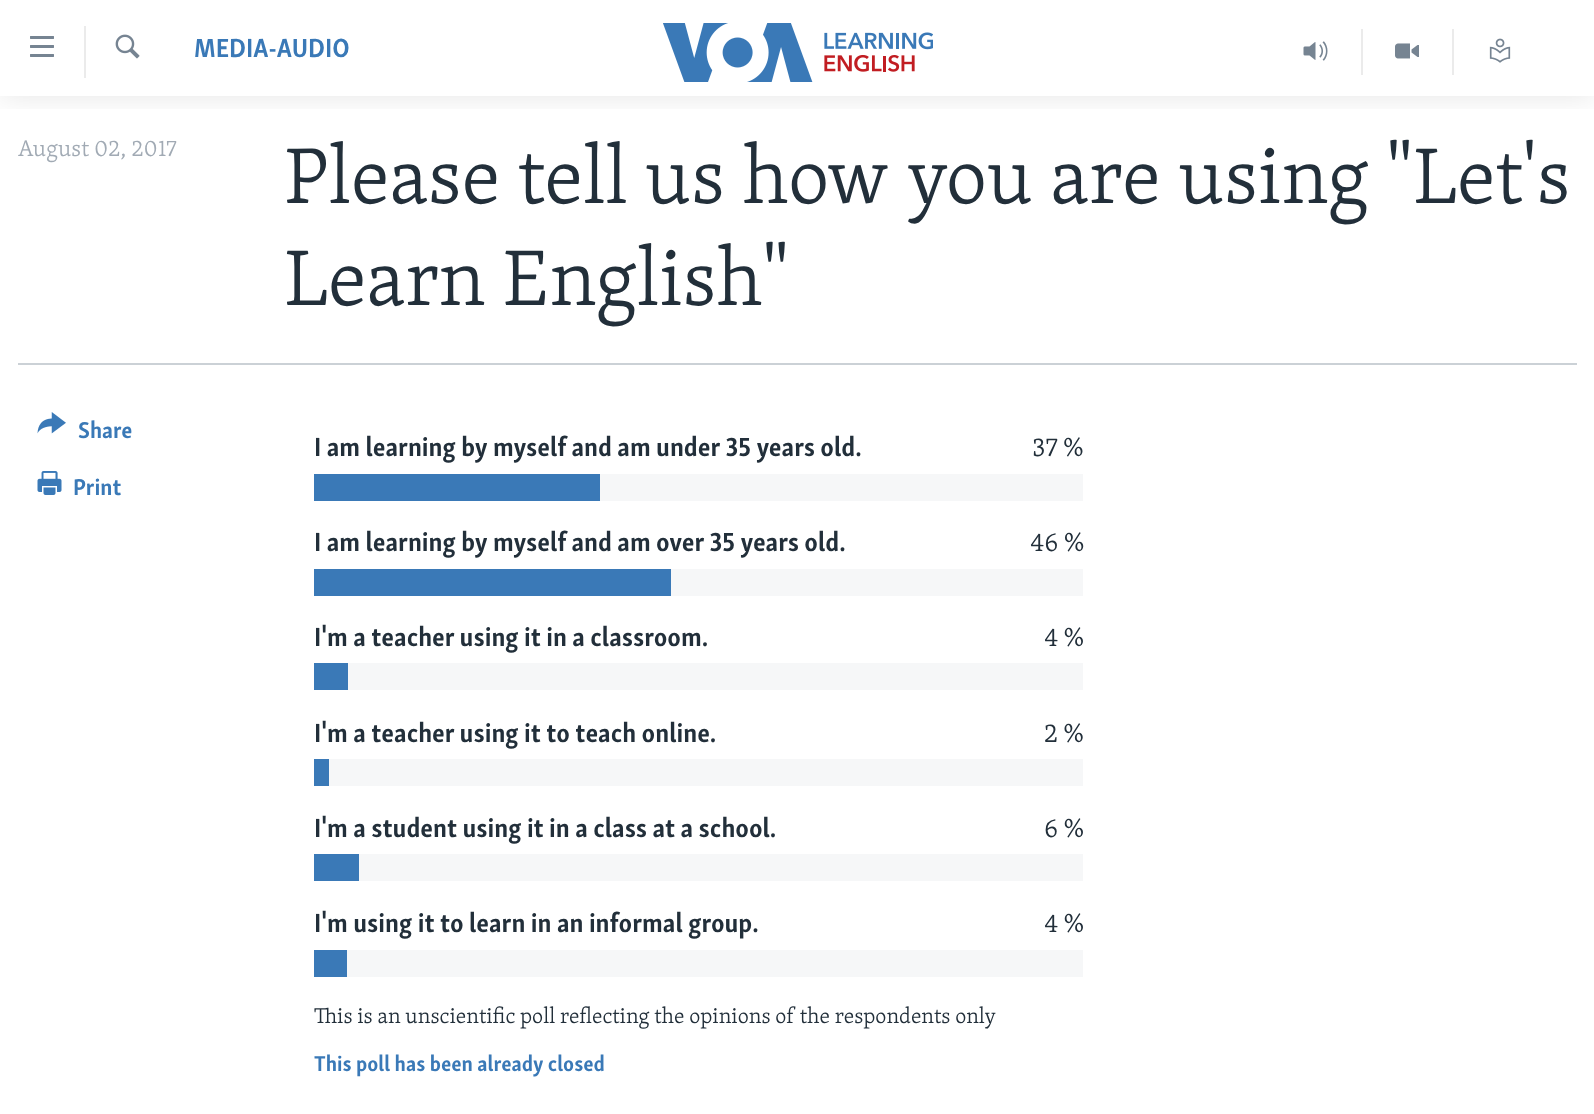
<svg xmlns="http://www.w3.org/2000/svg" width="1594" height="1114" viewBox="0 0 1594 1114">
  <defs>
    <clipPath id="clip1"><rect x="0" y="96" width="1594" height="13"/></clipPath>
    <filter id="blur1" x="-50%" y="-200%" width="200%" height="500%"><feGaussianBlur stdDeviation="15"/></filter>
  </defs>
  <rect width="100%" height="100%" fill="#ffffff"/>
  <g clip-path="url(#clip1)">
    <rect x="0" y="0" width="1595" height="96" fill="#000000" fill-opacity="0.1" filter="url(#blur1)"/>
  </g>
  <image x="30" y="36" width="24" height="21" href="img1.png"/>
  <rect x="84" y="26" width="2" height="52" fill="#ebebeb"/>
  <image x="115" y="34" width="25" height="25" href="img2.png"/>
  <text x="194" y="57" font-family="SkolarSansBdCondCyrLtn" font-size="27" font-weight="bold" fill="#3a79b7">MEDIA-AUDIO</text>
  <image x="663" y="23" width="270" height="59" href="img3.png"/>
  <rect x="1361" y="29" width="2" height="46" fill="#ebebeb"/>
  <image x="1303" y="41" width="25" height="20" href="img4.png"/>
  <rect x="1452" y="29" width="2" height="46" fill="#ebebeb"/>
  <image x="1395" y="43" width="24" height="16" href="img5.png"/>
  <image x="1489" y="38" width="22" height="25" href="img6.png"/>
  <text x="18" y="156" font-family="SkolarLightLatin" font-size="23.5" font-weight="300" fill="#a1aab4">August 02, 2017</text>
  <text x="284" y="203" font-family="SkolarLightLatin" font-size="81" font-weight="300" fill="#222f3a">Please tell us how you are using "Let's</text>
  <text x="284" y="305" font-family="SkolarLightLatin" font-size="81" font-weight="300" fill="#222f3a">Learn English"</text>
  <rect x="18" y="363" width="1559" height="2" fill="#cbd1d6"/>
  <image x="37" y="412" width="29" height="22" href="img7.png"/>
  <text x="78" y="438" font-family="SkolarSansBdCondCyrLtn" font-size="23.5" font-weight="bold" fill="#3a79b7">Share</text>
  <image x="37" y="471" width="25" height="24" href="img8.png"/>
  <text x="73" y="495" font-family="SkolarSansBdCondCyrLtn" font-size="23.5" font-weight="bold" fill="#3a79b7">Print</text>
  <text x="314" y="456" font-family="SkolarSansBdCondCyrLtn" font-size="27" font-weight="bold" fill="#222f3a">I am learning by myself and am under 35 years old.</text>
  <text x="1032" y="456" font-family="SkolarLightLatin" font-size="27" font-weight="300" fill="#222f3a">37 %</text>
  <rect x="600" y="474" width="483" height="27" fill="#f6f7f8"/>
  <rect x="314" y="474" width="286" height="27" fill="#3a79b7"/>
  <text x="314" y="551" font-family="SkolarSansBdCondCyrLtn" font-size="27" font-weight="bold" fill="#222f3a">I am learning by myself and am over 35 years old.</text>
  <text x="1030" y="551" font-family="SkolarLightLatin" font-size="27" font-weight="300" fill="#222f3a">46 %</text>
  <rect x="671" y="569" width="412" height="27" fill="#f6f7f8"/>
  <rect x="314" y="569" width="357" height="27" fill="#3a79b7"/>
  <text x="314" y="646" font-family="SkolarSansBdCondCyrLtn" font-size="27" font-weight="bold" fill="#222f3a">I'm a teacher using it in a classroom.</text>
  <text x="1044" y="646" font-family="SkolarLightLatin" font-size="27" font-weight="300" fill="#222f3a">4 %</text>
  <rect x="348" y="663" width="735" height="27" fill="#f6f7f8"/>
  <rect x="314" y="663" width="34" height="27" fill="#3a79b7"/>
  <text x="314" y="742" font-family="SkolarSansBdCondCyrLtn" font-size="27" font-weight="bold" fill="#222f3a">I'm a teacher using it to teach online.</text>
  <text x="1044" y="742" font-family="SkolarLightLatin" font-size="27" font-weight="300" fill="#222f3a">2 %</text>
  <rect x="329" y="759" width="754" height="27" fill="#f6f7f8"/>
  <rect x="314" y="759" width="15" height="27" fill="#3a79b7"/>
  <text x="314" y="837" font-family="SkolarSansBdCondCyrLtn" font-size="27" font-weight="bold" fill="#222f3a">I'm a student using it in a class at a school.</text>
  <text x="1044" y="837" font-family="SkolarLightLatin" font-size="27" font-weight="300" fill="#222f3a">6 %</text>
  <rect x="359" y="854" width="724" height="27" fill="#f6f7f8"/>
  <rect x="314" y="854" width="45" height="27" fill="#3a79b7"/>
  <text x="314" y="932" font-family="SkolarSansBdCondCyrLtn" font-size="27" font-weight="bold" fill="#222f3a">I'm using it to learn in an informal group.</text>
  <text x="1044" y="932" font-family="SkolarLightLatin" font-size="27" font-weight="300" fill="#222f3a">4 %</text>
  <rect x="347" y="950" width="736" height="27" fill="#f6f7f8"/>
  <rect x="314" y="950" width="33" height="27" fill="#3a79b7"/>
  <text x="314" y="1023" font-family="SkolarLightLatin" font-size="21.95" font-weight="300" fill="#222f3a">This is an unscientific poll reflecting the opinions of the respondents only</text>
  <text x="314" y="1071" font-family="SkolarSansBdCondCyrLtn" font-size="21.95" font-weight="bold" fill="#3a79b7">This poll has been already closed</text>
</svg>
